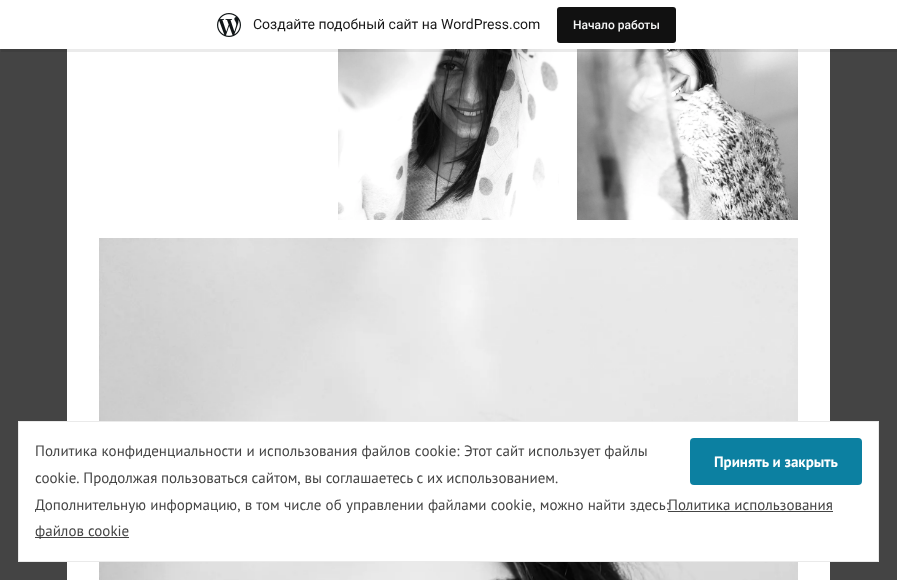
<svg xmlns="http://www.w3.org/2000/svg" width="897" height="580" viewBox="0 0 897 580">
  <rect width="100%" height="100%" fill="#444444"/>
  <rect x="67" y="49" width="763" height="531" fill="#ffffff"/>
  <image x="338" y="49" width="221" height="171" href="img2.png"/>
  <image x="577" y="49" width="221" height="171" href="img3.png"/>
  <path d="M1 49V52H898V3H897V49Z" fill="#000000" fill-opacity="0.08"/>
  <rect x="0" y="0" width="897" height="49" fill="#ffffff"/>
  <image x="217" y="13" width="24" height="24" href="img1.png"/>
  <text x="253" y="29" font-family="Roboto" font-size="14" fill="#171717">Создайте подобный сайт на WordPress.com</text>
  <rect x="557" y="7" width="119" height="36" rx="3" fill="#111111"/>
  <text x="573" y="29" font-family="Roboto" font-size="12" font-weight="500" fill="#f6f7f7">Начало работы</text>
  <image x="99" y="238" width="699" height="342" href="img4.png"/>
  <rect x="18.5" y="421.5" width="860" height="140" fill="#ffffff" stroke="#eaeaea"/>
  <text x="35" y="456" word-spacing="0.25" font-family="PT Sans" font-size="15" fill="#444444">Политика конфиденциальности и использования файлов сookie: Этот сайт использует файлы</text>
  <rect x="690" y="438" width="172" height="47" rx="4" fill="#0c80a1"/>
  <text x="714" y="467" font-family="PT Sans" font-size="15" font-weight="bold" fill="#ffffff">Принять и закрыть</text>
  <text x="35" y="483" word-spacing="-0.25" font-family="PT Sans" font-size="15" fill="#444444">cookie. Продолжая пользоваться сайтом, вы соглашаетесь с их использованием.</text>
  <text x="35" y="510" word-spacing="0.25" font-family="PT Sans" font-size="15" fill="#444444">Дополнительную информацию, в том числе об управлении файлами cookie, можно найти здесь:</text>
  <text x="668" y="510" font-family="PT Sans" font-size="15" fill="#444444">Политика использования</text>
  <rect x="668" y="511" width="165" height="1" fill="#444444"/>
  <rect x="35" y="537" width="94" height="1" fill="#444444"/>
  <text x="35" y="536" font-family="PT Sans" font-size="15" fill="#444444">файлов cookie</text>
</svg>
